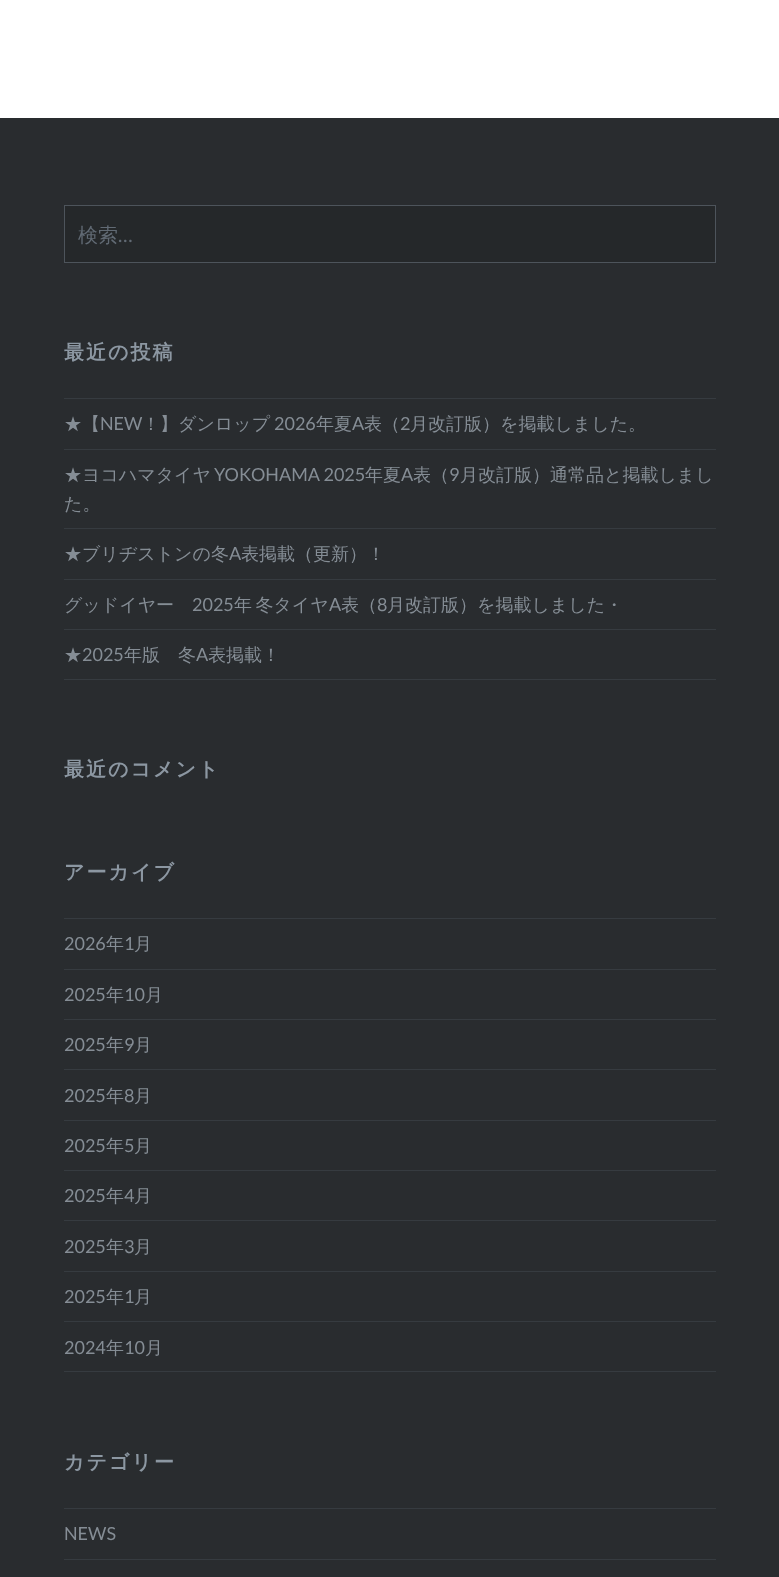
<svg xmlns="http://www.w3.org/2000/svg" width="779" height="1577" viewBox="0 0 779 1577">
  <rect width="100%" height="100%" fill="#ffffff"/>
  <rect x="0" y="118" width="779" height="1459" fill="#292c2f"/>
  <rect x="64.5" y="205.5" width="651" height="57" fill="#25282a" stroke="#4d545b"/>
  <text x="78" y="242" font-family="WenQuanYi Zen Hei" font-size="20" font-weight="500" fill="#616a74">検索</text>
  <text x="118" y="242" font-family="Lato" font-size="20" fill="#616a74">…</text>
  <text x="64" y="359" font-family="WenQuanYi Zen Hei" font-size="20" font-weight="bold" letter-spacing="2" fill="#8c97a2">最近の投稿</text>
  <rect x="64" y="398" width="652" height="1" fill="#363b40"/>
  <rect x="64" y="449" width="652" height="1" fill="#363b40"/>
  <text x="64" y="430" font-family="WenQuanYi Zen Hei" font-size="18" font-weight="500" fill="#858d95">★【</text>
  <text x="100" y="430" font-family="Lato" font-size="18" fill="#858d95">NEW</text>
  <text x="142" y="430" font-family="WenQuanYi Zen Hei" font-size="18" font-weight="500" fill="#858d95">！】ダンロップ</text>
  <text x="274" y="430" font-family="Lato" font-size="18" fill="#858d95">2026</text>
  <text x="316" y="430" font-family="WenQuanYi Zen Hei" font-size="18" font-weight="500" fill="#858d95">年夏</text>
  <text x="352" y="430" font-family="Lato" font-size="18" fill="#858d95">A</text>
  <text x="364" y="430" font-family="WenQuanYi Zen Hei" font-size="18" font-weight="500" fill="#858d95">表（</text>
  <text x="400" y="430" font-family="Lato" font-size="18" fill="#858d95">2</text>
  <text x="410" y="430" font-family="WenQuanYi Zen Hei" font-size="18" font-weight="500" fill="#858d95">月改訂版）を掲載しました。</text>
  <rect x="64" y="528" width="652" height="1" fill="#363b40"/>
  <text x="64" y="481" font-family="WenQuanYi Zen Hei" font-size="18" font-weight="500" fill="#858d95">★ヨコハマタイヤ</text>
  <text x="214" y="481" font-family="Lato" font-size="18" fill="#858d95">YOKOHAMA 2025</text>
  <text x="365" y="481" font-family="WenQuanYi Zen Hei" font-size="18" font-weight="500" fill="#858d95">年夏</text>
  <text x="401" y="481" font-family="Lato" font-size="18" fill="#858d95">A</text>
  <text x="413" y="481" font-family="WenQuanYi Zen Hei" font-size="18" font-weight="500" fill="#858d95">表（</text>
  <text x="449" y="481" font-family="Lato" font-size="18" fill="#858d95">9</text>
  <text x="460" y="481" font-family="WenQuanYi Zen Hei" font-size="18" font-weight="500" fill="#858d95">月改訂版）通常品と掲載しまし</text>
  <text x="64" y="510" font-family="WenQuanYi Zen Hei" font-size="18" font-weight="500" fill="#858d95">た。</text>
  <rect x="64" y="579" width="652" height="1" fill="#363b40"/>
  <text x="64" y="560" font-family="WenQuanYi Zen Hei" font-size="18" font-weight="500" fill="#858d95">★ブリヂストンの冬</text>
  <text x="229" y="560" font-family="Lato" font-size="18" fill="#858d95">A</text>
  <text x="241" y="560" font-family="WenQuanYi Zen Hei" font-size="18" font-weight="500" fill="#858d95">表掲載（更新）！</text>
  <rect x="64" y="629" width="652" height="1" fill="#363b40"/>
  <text x="64" y="611" font-family="WenQuanYi Zen Hei" font-size="18" font-weight="500" fill="#858d95">グッドイヤー</text>
  <text x="192" y="611" font-family="Lato" font-size="18" fill="#858d95">2025</text>
  <text x="234" y="611" word-spacing="-2" font-family="WenQuanYi Zen Hei" font-size="18" font-weight="500" fill="#858d95">年 冬タイヤ</text>
  <text x="329" y="611" font-family="Lato" font-size="18" fill="#858d95">A</text>
  <text x="341" y="611" font-family="WenQuanYi Zen Hei" font-size="18" font-weight="500" fill="#858d95">表（</text>
  <text x="377" y="611" font-family="Lato" font-size="18" fill="#858d95">8</text>
  <text x="387" y="611" font-family="WenQuanYi Zen Hei" font-size="18" font-weight="500" fill="#858d95">月改訂版）を掲載しました・</text>
  <rect x="64" y="679" width="652" height="1" fill="#363b40"/>
  <text x="64" y="661" font-family="WenQuanYi Zen Hei" font-size="18" font-weight="500" fill="#858d95">★</text>
  <text x="82" y="661" font-family="Lato" font-size="18" fill="#858d95">2025</text>
  <text x="124" y="661" font-family="WenQuanYi Zen Hei" font-size="18" font-weight="500" fill="#858d95">年版　冬</text>
  <text x="196" y="661" font-family="Lato" font-size="18" fill="#858d95">A</text>
  <text x="208" y="661" font-family="WenQuanYi Zen Hei" font-size="18" font-weight="500" fill="#858d95">表掲載！</text>
  <text x="64" y="776" font-family="WenQuanYi Zen Hei" font-size="20" font-weight="bold" letter-spacing="2" fill="#8c97a2">最近のコメント</text>
  <text x="64" y="879" font-family="WenQuanYi Zen Hei" font-size="20" font-weight="bold" letter-spacing="2" fill="#8c97a2">アーカイブ</text>
  <rect x="64" y="918" width="652" height="1" fill="#363b40"/>
  <rect x="64" y="969" width="652" height="1" fill="#363b40"/>
  <text x="64" y="950" font-family="Lato" font-size="18" fill="#858d95">2026</text>
  <text x="106" y="950" font-family="WenQuanYi Zen Hei" font-size="18" font-weight="500" fill="#858d95">年</text>
  <text x="124" y="950" font-family="Lato" font-size="18" fill="#858d95">1</text>
  <text x="134" y="950" font-family="WenQuanYi Zen Hei" font-size="18" font-weight="500" fill="#858d95">月</text>
  <rect x="64" y="1019" width="652" height="1" fill="#363b40"/>
  <text x="64" y="1001" font-family="Lato" font-size="18" fill="#858d95">2025</text>
  <text x="106" y="1001" font-family="WenQuanYi Zen Hei" font-size="18" font-weight="500" fill="#858d95">年</text>
  <text x="124" y="1001" font-family="Lato" font-size="18" fill="#858d95">10</text>
  <text x="145" y="1001" font-family="WenQuanYi Zen Hei" font-size="18" font-weight="500" fill="#858d95">月</text>
  <rect x="64" y="1069" width="652" height="1" fill="#363b40"/>
  <text x="64" y="1051" font-family="Lato" font-size="18" fill="#858d95">2025</text>
  <text x="106" y="1051" font-family="WenQuanYi Zen Hei" font-size="18" font-weight="500" fill="#858d95">年</text>
  <text x="124" y="1051" font-family="Lato" font-size="18" fill="#858d95">9</text>
  <text x="134" y="1051" font-family="WenQuanYi Zen Hei" font-size="18" font-weight="500" fill="#858d95">月</text>
  <rect x="64" y="1120" width="652" height="1" fill="#363b40"/>
  <text x="64" y="1102" font-family="Lato" font-size="18" fill="#858d95">2025</text>
  <text x="106" y="1102" font-family="WenQuanYi Zen Hei" font-size="18" font-weight="500" fill="#858d95">年</text>
  <text x="124" y="1102" font-family="Lato" font-size="18" fill="#858d95">8</text>
  <text x="134" y="1102" font-family="WenQuanYi Zen Hei" font-size="18" font-weight="500" fill="#858d95">月</text>
  <rect x="64" y="1170" width="652" height="1" fill="#363b40"/>
  <text x="64" y="1152" font-family="Lato" font-size="18" fill="#858d95">2025</text>
  <text x="106" y="1152" font-family="WenQuanYi Zen Hei" font-size="18" font-weight="500" fill="#858d95">年</text>
  <text x="124" y="1152" font-family="Lato" font-size="18" fill="#858d95">5</text>
  <text x="134" y="1152" font-family="WenQuanYi Zen Hei" font-size="18" font-weight="500" fill="#858d95">月</text>
  <rect x="64" y="1220" width="652" height="1" fill="#363b40"/>
  <text x="64" y="1202" font-family="Lato" font-size="18" fill="#858d95">2025</text>
  <text x="106" y="1202" font-family="WenQuanYi Zen Hei" font-size="18" font-weight="500" fill="#858d95">年</text>
  <text x="124" y="1202" font-family="Lato" font-size="18" fill="#858d95">4</text>
  <text x="134" y="1202" font-family="WenQuanYi Zen Hei" font-size="18" font-weight="500" fill="#858d95">月</text>
  <rect x="64" y="1271" width="652" height="1" fill="#363b40"/>
  <text x="64" y="1253" font-family="Lato" font-size="18" fill="#858d95">2025</text>
  <text x="106" y="1253" font-family="WenQuanYi Zen Hei" font-size="18" font-weight="500" fill="#858d95">年</text>
  <text x="124" y="1253" font-family="Lato" font-size="18" fill="#858d95">3</text>
  <text x="134" y="1253" font-family="WenQuanYi Zen Hei" font-size="18" font-weight="500" fill="#858d95">月</text>
  <rect x="64" y="1321" width="652" height="1" fill="#363b40"/>
  <text x="64" y="1303" font-family="Lato" font-size="18" fill="#858d95">2025</text>
  <text x="106" y="1303" font-family="WenQuanYi Zen Hei" font-size="18" font-weight="500" fill="#858d95">年</text>
  <text x="124" y="1303" font-family="Lato" font-size="18" fill="#858d95">1</text>
  <text x="134" y="1303" font-family="WenQuanYi Zen Hei" font-size="18" font-weight="500" fill="#858d95">月</text>
  <rect x="64" y="1371" width="652" height="1" fill="#363b40"/>
  <text x="64" y="1354" font-family="Lato" font-size="18" fill="#858d95">2024</text>
  <text x="106" y="1354" font-family="WenQuanYi Zen Hei" font-size="18" font-weight="500" fill="#858d95">年</text>
  <text x="124" y="1354" font-family="Lato" font-size="18" fill="#858d95">10</text>
  <text x="145" y="1354" font-family="WenQuanYi Zen Hei" font-size="18" font-weight="500" fill="#858d95">月</text>
  <text x="64" y="1469" font-family="WenQuanYi Zen Hei" font-size="20" font-weight="bold" letter-spacing="2" fill="#8c97a2">カテゴリー</text>
  <rect x="64" y="1508" width="652" height="1" fill="#363b40"/>
  <rect x="64" y="1559" width="652" height="1" fill="#363b40"/>
  <text x="64" y="1540" font-family="Lato" font-size="18" fill="#858d95">NEWS</text>
</svg>
